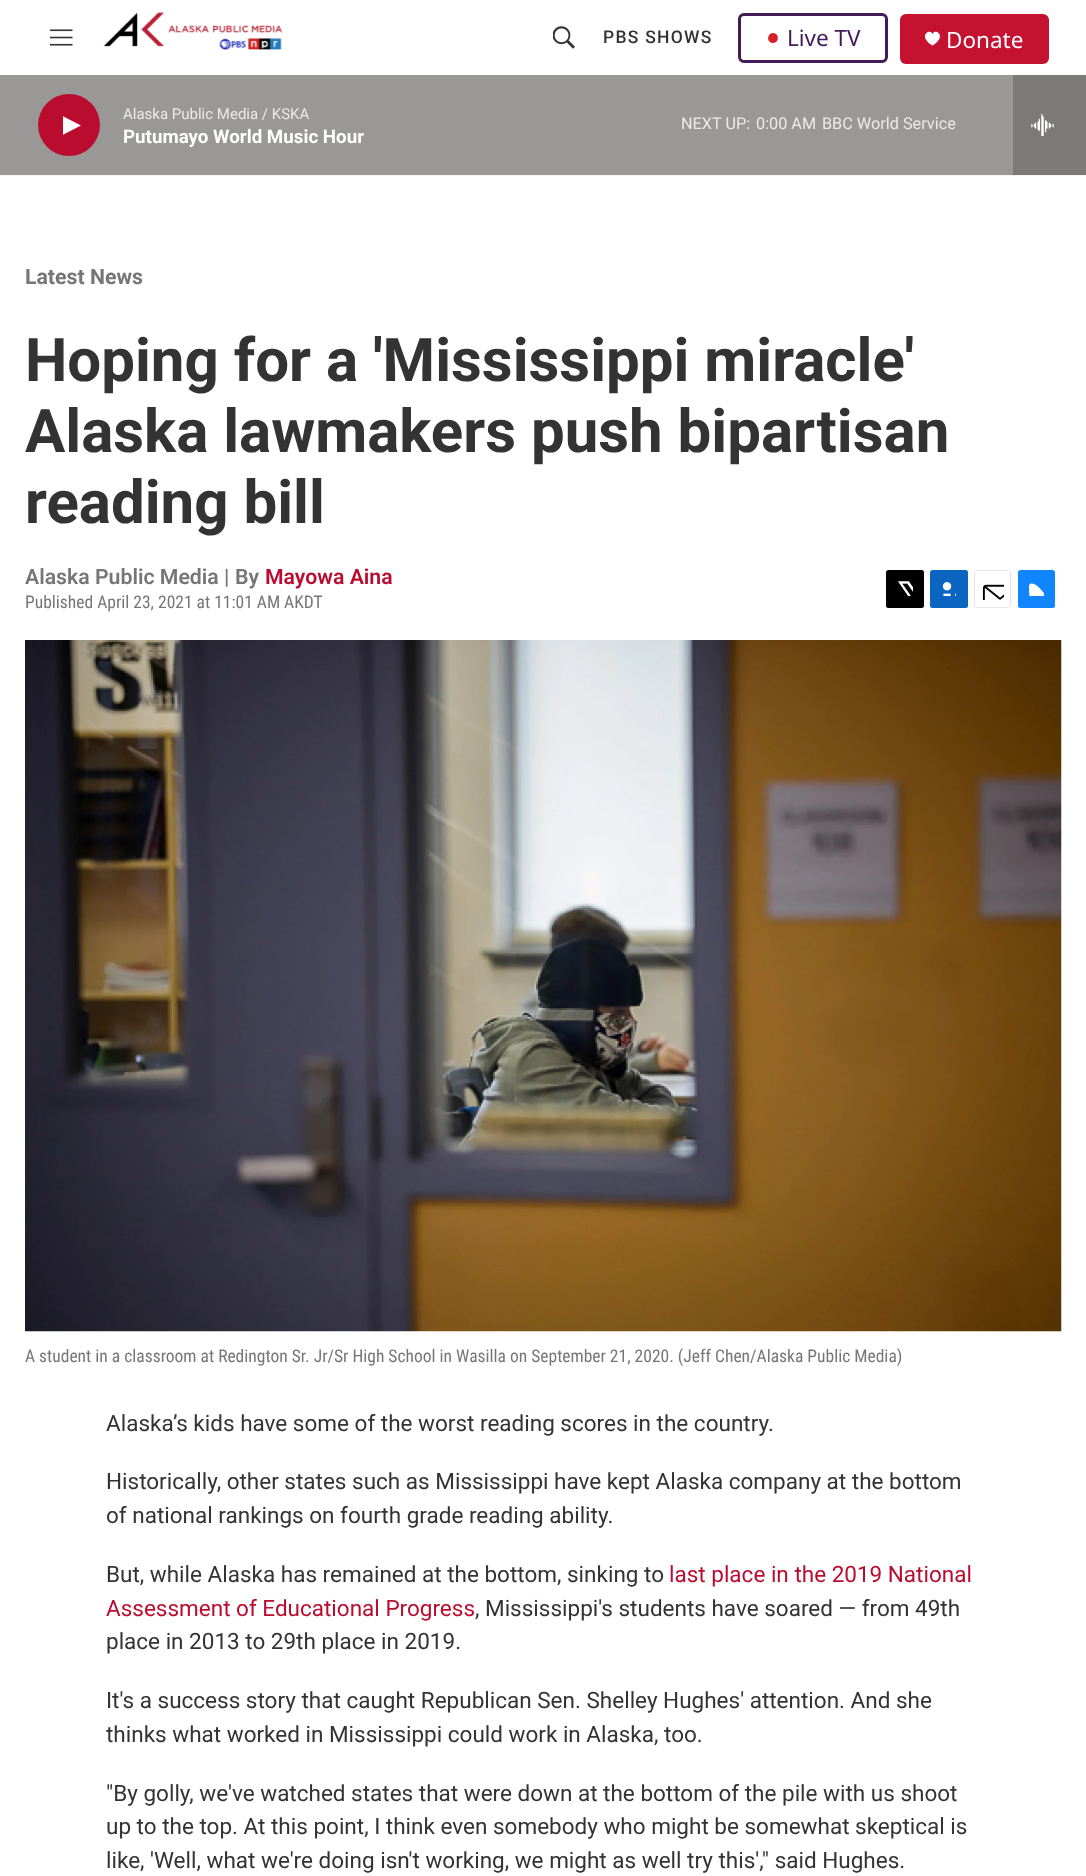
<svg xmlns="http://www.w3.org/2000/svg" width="1086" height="1876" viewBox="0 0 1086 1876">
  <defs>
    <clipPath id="clip1"><rect x="63" y="114" width="18" height="24"/></clipPath>
  </defs>
  <rect width="100%" height="100%" fill="#ffffff"/>
  <rect x="0" y="175" width="1086" height="1" fill="#f5f5f5"/>
  <image x="50" y="29" width="23" height="17" href="img1.png"/>
  <image x="103" y="12" width="180" height="38" href="img2.png"/>
  <image x="553" y="26" width="22" height="23" href="img3.png"/>
  <text x="603" y="43" font-family="Roboto" font-size="17.5" font-weight="500" letter-spacing="1.25" fill="#333333">PBS SHOWS</text>
  <rect x="739.5" y="14.5" width="147" height="47" rx="4.5" fill="none" stroke="#411c58" stroke-width="3"/>
  <path d="M773 33C779.5 33 779.5 43 773 43C768 43 766.5 37.5 770 34C771 33.5 772 33 773 33Z" fill="#d62021"/>
  <text x="787" y="46" font-family="Noto Sans" font-size="22.5" fill="#411c58">Live TV</text>
  <rect x="900" y="14" width="149" height="50" rx="6" fill="#c41230"/>
  <path d="M932.5 34C930 27.5 917 36 932.5 45.5C948 36 935 27.5 932.5 34Z" fill="#ffffff"/>
  <text x="946" y="48" font-family="Noto Sans" font-size="22.5" fill="#ffffff">Donate</text>
  <rect x="0" y="75" width="1013" height="100" fill="#9a9896"/>
  <circle cx="69" cy="125" r="31" fill="#ba0c2f"/>
  <g clip-path="url(#clip1)">
    <path d="M62.5 116L81 125.5L62.5 135Z" fill="#ffffff"/>
  </g>
  <text x="123" y="119" font-family="Roboto" font-size="15" fill="#ebeaea">Alaska Public Media / KSKA</text>
  <text x="123" y="143" font-family="'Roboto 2'" font-size="18.75" font-weight="bold" fill="#ffffff">Putumayo World Music Hour</text>
  <text x="681" y="129" font-family="Roboto" font-size="16.25" fill="#ebeaea">NEXT UP:</text>
  <text x="756" y="129" font-family="Roboto" font-size="16.25" fill="#ebeaea">0:00 AM</text>
  <text x="822" y="129" font-family="Roboto" font-size="16.25" fill="#ebeaea">BBC World Service</text>
  <rect x="1013" y="75" width="73" height="100" fill="#7b7a78"/>
  <image x="1031" y="114" width="23" height="22" href="img4.png"/>
  <text x="25" y="284" font-family="Roboto" font-size="21.25" font-weight="bold" fill="#767676">Latest News</text>
  <text x="25" y="381" font-family="Roboto" font-size="60" font-weight="bold" fill="#333333">Hoping for a 'Mississippi miracle'</text>
  <text x="25" y="452" font-family="Roboto" font-size="60" font-weight="bold" fill="#333333">Alaska lawmakers push bipartisan</text>
  <text x="25" y="523" font-family="Roboto" font-size="60" font-weight="bold" fill="#333333">reading bill</text>
  <text x="25" y="584" font-family="Roboto" font-size="21.25" font-weight="600" fill="#767676">Alaska Public Media |</text>
  <text x="235" y="584" font-family="Roboto" font-size="21.25" font-weight="600" fill="#767676">By</text>
  <text x="265" y="584" font-family="Roboto" font-size="21.25" font-weight="600" fill="#ba0c2f">Mayowa Aina</text>
  <text x="25" y="608" font-family="Roboto Condensed" font-size="17.5" fill="#767676">Published April 23, 2021 at 11:01 AM AKDT</text>
  <rect x="886" y="570" width="38" height="38" rx="2.5" fill="#000000"/>
  <image x="898" y="581" width="15" height="15" href="img5.png"/>
  <rect x="930" y="570" width="38" height="38" rx="2.5" fill="#0a66c1"/>
  <image x="942" y="582" width="14" height="14" href="img6.png"/>
  <rect x="974.5" y="570.5" width="36" height="37" rx="2" fill="none" stroke="#e6e6e6"/>
  <image x="982" y="584" width="22" height="16" href="img7.png"/>
  <rect x="1018" y="570" width="37" height="38" rx="2.5" fill="#1185fe"/>
  <image x="1029" y="583" width="15" height="13" href="img8.png"/>
  <image x="25" y="640" width="1037" height="692" href="img9.png"/>
  <text x="25" y="1362" font-family="Roboto Condensed" font-size="17.5" fill="#767676">A student in a classroom at Redington Sr. Jr/Sr High School in Wasilla on September 21, 2020. (Jeff Chen/Alaska Public Media)</text>
  <text x="106" y="1431" font-family="Roboto" font-size="22.5" fill="#333333">Alaska’s kids have some of the worst reading scores in the country.</text>
  <text x="106" y="1489" font-family="Roboto" font-size="22.5" fill="#333333">Historically, other states such as Mississippi have kept Alaska company at the bottom</text>
  <text x="106" y="1523" font-family="Roboto" font-size="22.5" fill="#333333">of national rankings on fourth grade reading ability.</text>
  <text x="106" y="1582" font-family="Roboto" font-size="22.5" fill="#333333">But, while Alaska has remained at the bottom, sinking to</text>
  <text x="669" y="1582" font-family="Roboto" font-size="22.5" fill="#ba0c2f">last place in the 2019 National</text>
  <text x="106" y="1616" font-family="Roboto" font-size="22.5" fill="#ba0c2f">Assessment of Educational Progress</text>
  <text x="475" y="1616" font-family="Roboto" font-size="22.5" fill="#333333">, Mississippi's students have soared — from 49th</text>
  <text x="106" y="1649" font-family="Roboto" font-size="22.5" fill="#333333">place in 2013 to 29th place in 2019.</text>
  <text x="106" y="1708" font-family="Roboto" font-size="22.5" fill="#333333">It's a success story that caught Republican Sen. Shelley Hughes' attention. And she</text>
  <text x="106" y="1742" font-family="Roboto" font-size="22.5" fill="#333333">thinks what worked in Mississippi could work in Alaska, too.</text>
  <text x="106" y="1801" font-family="Roboto" font-size="22.5" fill="#333333">"By golly, we've watched states that were down at the bottom of the pile with us shoot</text>
  <text x="106" y="1834" font-family="Roboto" font-size="22.5" fill="#333333">up to the top. At this point, I think even somebody who might be somewhat skeptical is</text>
  <text x="106" y="1868" font-family="Roboto" font-size="22.5" fill="#333333">like, 'Well, what we're doing isn't working, we might as well try this'," said Hughes.</text>
</svg>
